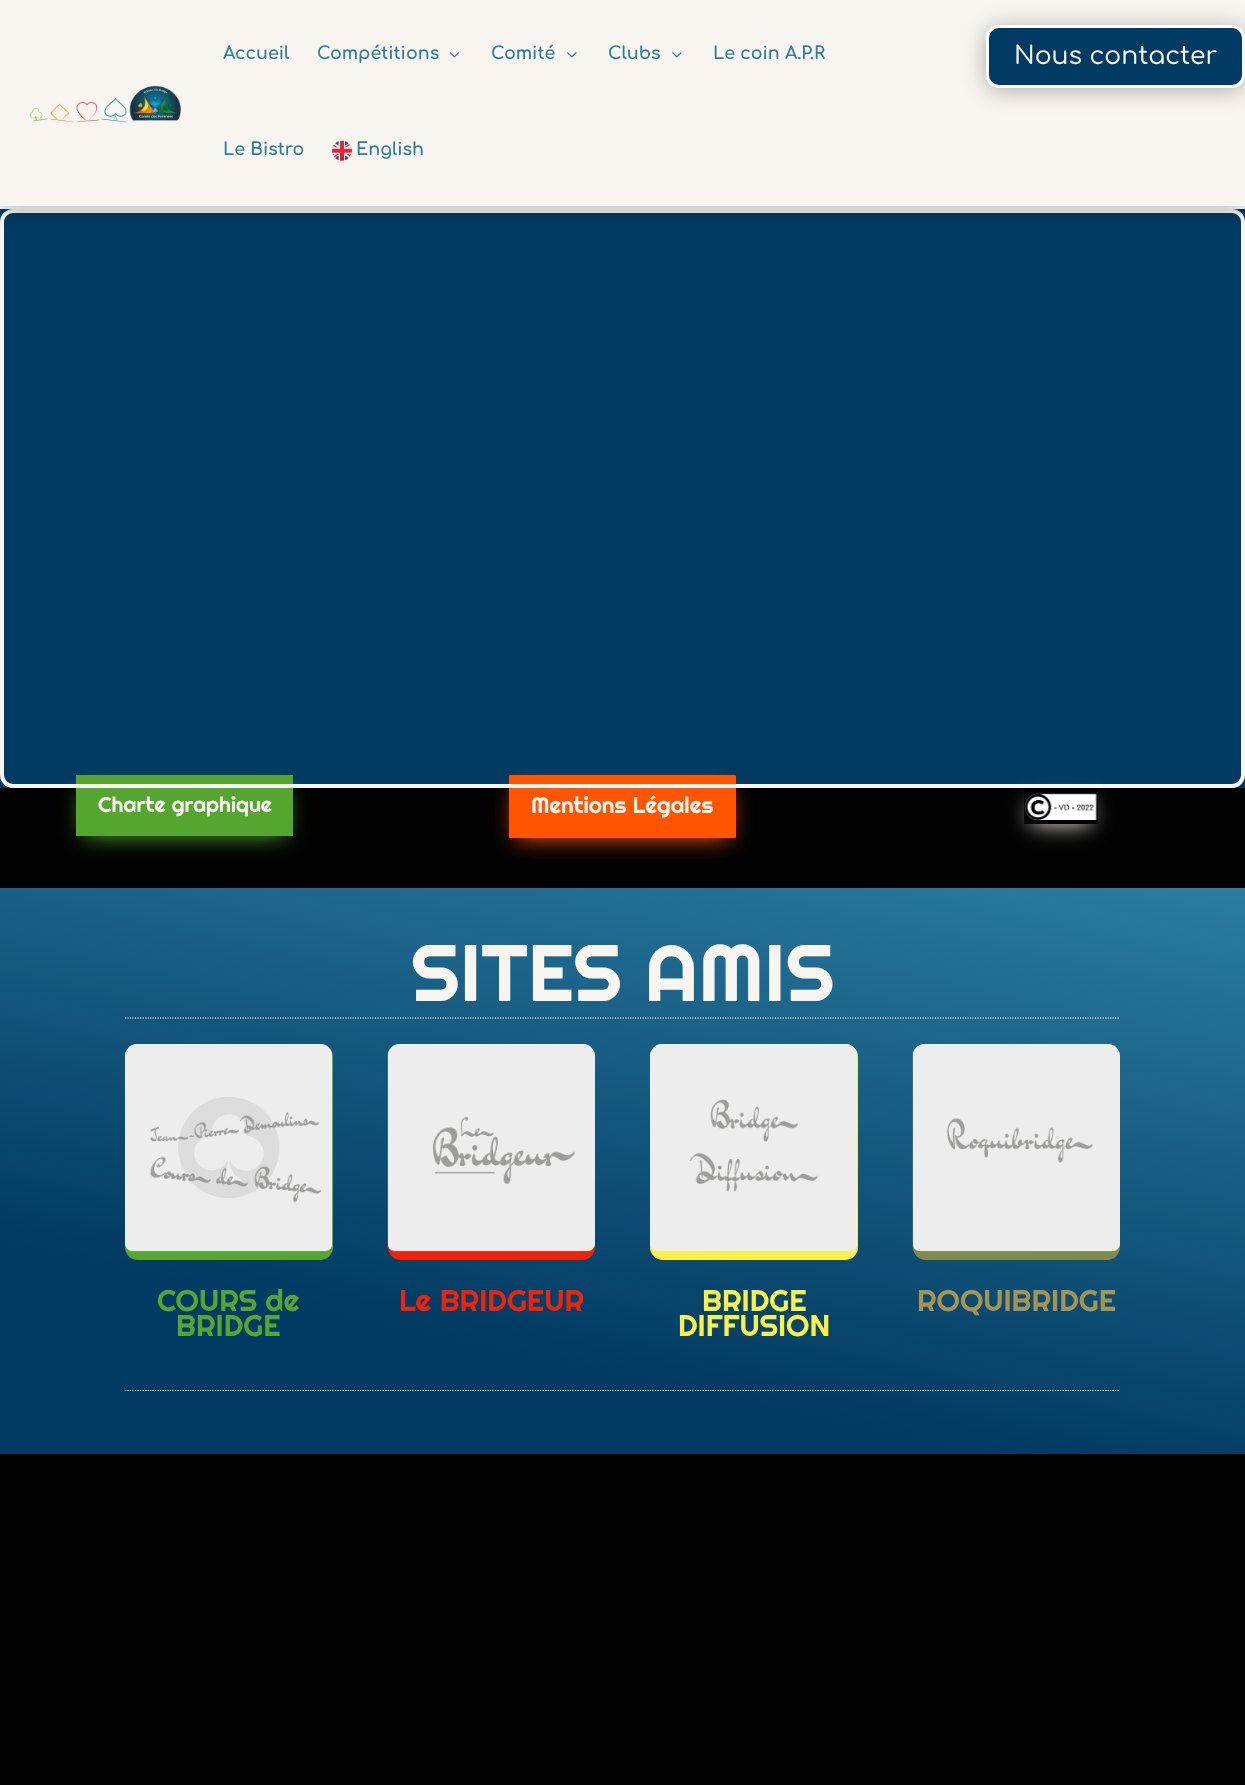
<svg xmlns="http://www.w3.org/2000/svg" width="1245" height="1785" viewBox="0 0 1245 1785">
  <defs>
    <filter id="blur1" x="-50%" y="-200%" width="200%" height="500%"><feGaussianBlur stdDeviation="11"/></filter>
    <clipPath id="clip1"><path d="M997 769H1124V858H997ZM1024 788H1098V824H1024Z" clip-rule="evenodd"/></clipPath>
    <linearGradient id="g1" gradientUnits="userSpaceOnUse" x1="538" y1="1568" x2="707" y2="773"><stop offset="0.25" stop-color="#013a63"/><stop offset="1" stop-color="#2c7da0"/></linearGradient>
  </defs>
  <rect width="100%" height="100%" fill="#020202"/>
  <rect x="0" y="206" width="1245" height="3" fill="#ffffff"/>
  <rect x="0" y="209" width="1245" height="579" fill="#013a63"/>
  <rect x="84" y="790" width="201" height="46" fill="#55a630" filter="url(#blur1)"/>
  <rect x="76" y="775" width="217" height="61" fill="#55a630"/>
  <rect x="516" y="790" width="213" height="48" fill="#ff5400" filter="url(#blur1)"/>
  <rect x="509" y="775" width="227" height="63" rx="1" fill="#ff5400"/>
  <g clip-path="url(#clip1)">
    <rect x="1031" y="803" width="59" height="21" fill="#f8f4ef" filter="url(#blur1)"/>
  </g>
  <rect x="2" y="211" width="1241" height="575" rx="11" fill="none" stroke="#f8f4ef" stroke-width="4"/>
  <rect x="0" y="3" width="1245" height="206" fill="#000000" fill-opacity="0.3" filter="url(#blur1)"/>
  <rect x="0" y="0" width="1245" height="206" fill="#f8f4ef"/>
  <image x="29" y="85" width="152" height="38" href="img1.png"/>
  <text x="223" y="59" font-family="Comfortaa" font-size="17.5" font-weight="bold" fill="#2c7da0">Accueil</text>
  <text x="317" y="59" font-family="Comfortaa" font-size="17.5" font-weight="bold" fill="#2c7da0">Compétitions</text>
  <image x="449" y="52" width="10" height="6" href="img2.png"/>
  <text x="491" y="59" font-family="Comfortaa" font-size="17.5" font-weight="bold" fill="#2c7da0">Comité</text>
  <image x="567" y="52" width="10" height="6" href="img3.png"/>
  <text x="608" y="59" font-family="Comfortaa" font-size="17.5" font-weight="bold" fill="#2c7da0">Clubs</text>
  <image x="672" y="52" width="10" height="6" href="img3.png"/>
  <text x="713" y="59" font-family="Comfortaa" font-size="17.5" font-weight="bold" fill="#2c7da0">Le coin A.P.R</text>
  <text x="223" y="155" font-family="Comfortaa" font-size="17.5" font-weight="bold" fill="#2c7da0">Le Bistro</text>
  <image x="332" y="140" width="20" height="21" href="img4.png"/>
  <text x="356" y="155" font-family="Comfortaa" font-size="17.5" font-weight="bold" fill="#2c7da0">English</text>
  <rect x="986" y="28" width="259" height="62" rx="13" fill="#000000" fill-opacity="0.3" filter="url(#blur1)"/>
  <rect x="987.5" y="26.5" width="256" height="60" rx="11.5" fill="#013a63" stroke="#ffffff" stroke-width="3"/>
  <text x="1014" y="64" font-family="Comfortaa" font-size="25" font-weight="500" fill="#f8f4ef">Nous contacter</text>
  <text x="98" y="812" font-family="Righteous" font-size="21.25" fill="#f8f4ef">Charte graphique</text>
  <text x="531" y="813" font-family="Righteous" font-size="22.5" fill="#f8f4ef">Mentions Légales</text>
  <image x="1024" y="793" width="73" height="28" href="img5.png"/>
  <rect x="0" y="888" width="1245" height="566" fill="url(#g1)"/>
  <text x="411" y="1001" font-family="Righteous" font-size="80" fill="#f8f4ef">SITES AMIS</text>
  <path d="M125 1018H1120" fill="none" stroke="#f8f4ef" stroke-width="1.2" stroke-dasharray="1.25 1.25"/>
  <path d="M125 1390.5H1120" fill="none" stroke="#f8f4ef" stroke-width="1.2" stroke-dasharray="1.25 1.25"/>
  <rect x="125" y="1044" width="208" height="216" rx="13" fill="#55a630"/>
  <image x="125" y="1044" width="208" height="208" href="img6.png"/>
  <text x="157" y="1311" font-family="Righteous" font-size="30" fill="#55a630">COURS de</text>
  <text x="176" y="1336" font-family="Righteous" font-size="30" fill="#55a630">BRIDGE</text>
  <rect x="388" y="1044" width="207" height="216" rx="13" fill="#ef220b"/>
  <image x="387" y="1044" width="208" height="208" href="img7.png"/>
  <text x="399" y="1311" font-family="Righteous" font-size="30" fill="#ef220b">Le BRIDGEUR</text>
  <rect x="650" y="1044" width="208" height="216" rx="13" fill="#f9f148"/>
  <image x="650" y="1044" width="208" height="208" href="img8.png"/>
  <text x="702" y="1311" font-family="Righteous" font-size="30" fill="#f9f148">BRIDGE</text>
  <text x="678" y="1336" font-family="Righteous" font-size="30" fill="#f9f148">DIFFUSION</text>
  <rect x="913" y="1044" width="207" height="216" rx="13" fill="#bfaf37" fill-opacity="0.63"/>
  <image x="912" y="1044" width="208" height="208" href="img9.png"/>
  <text x="917" y="1311" font-family="Righteous" font-size="30" fill="#a59352">ROQUIBRIDGE</text>
</svg>
